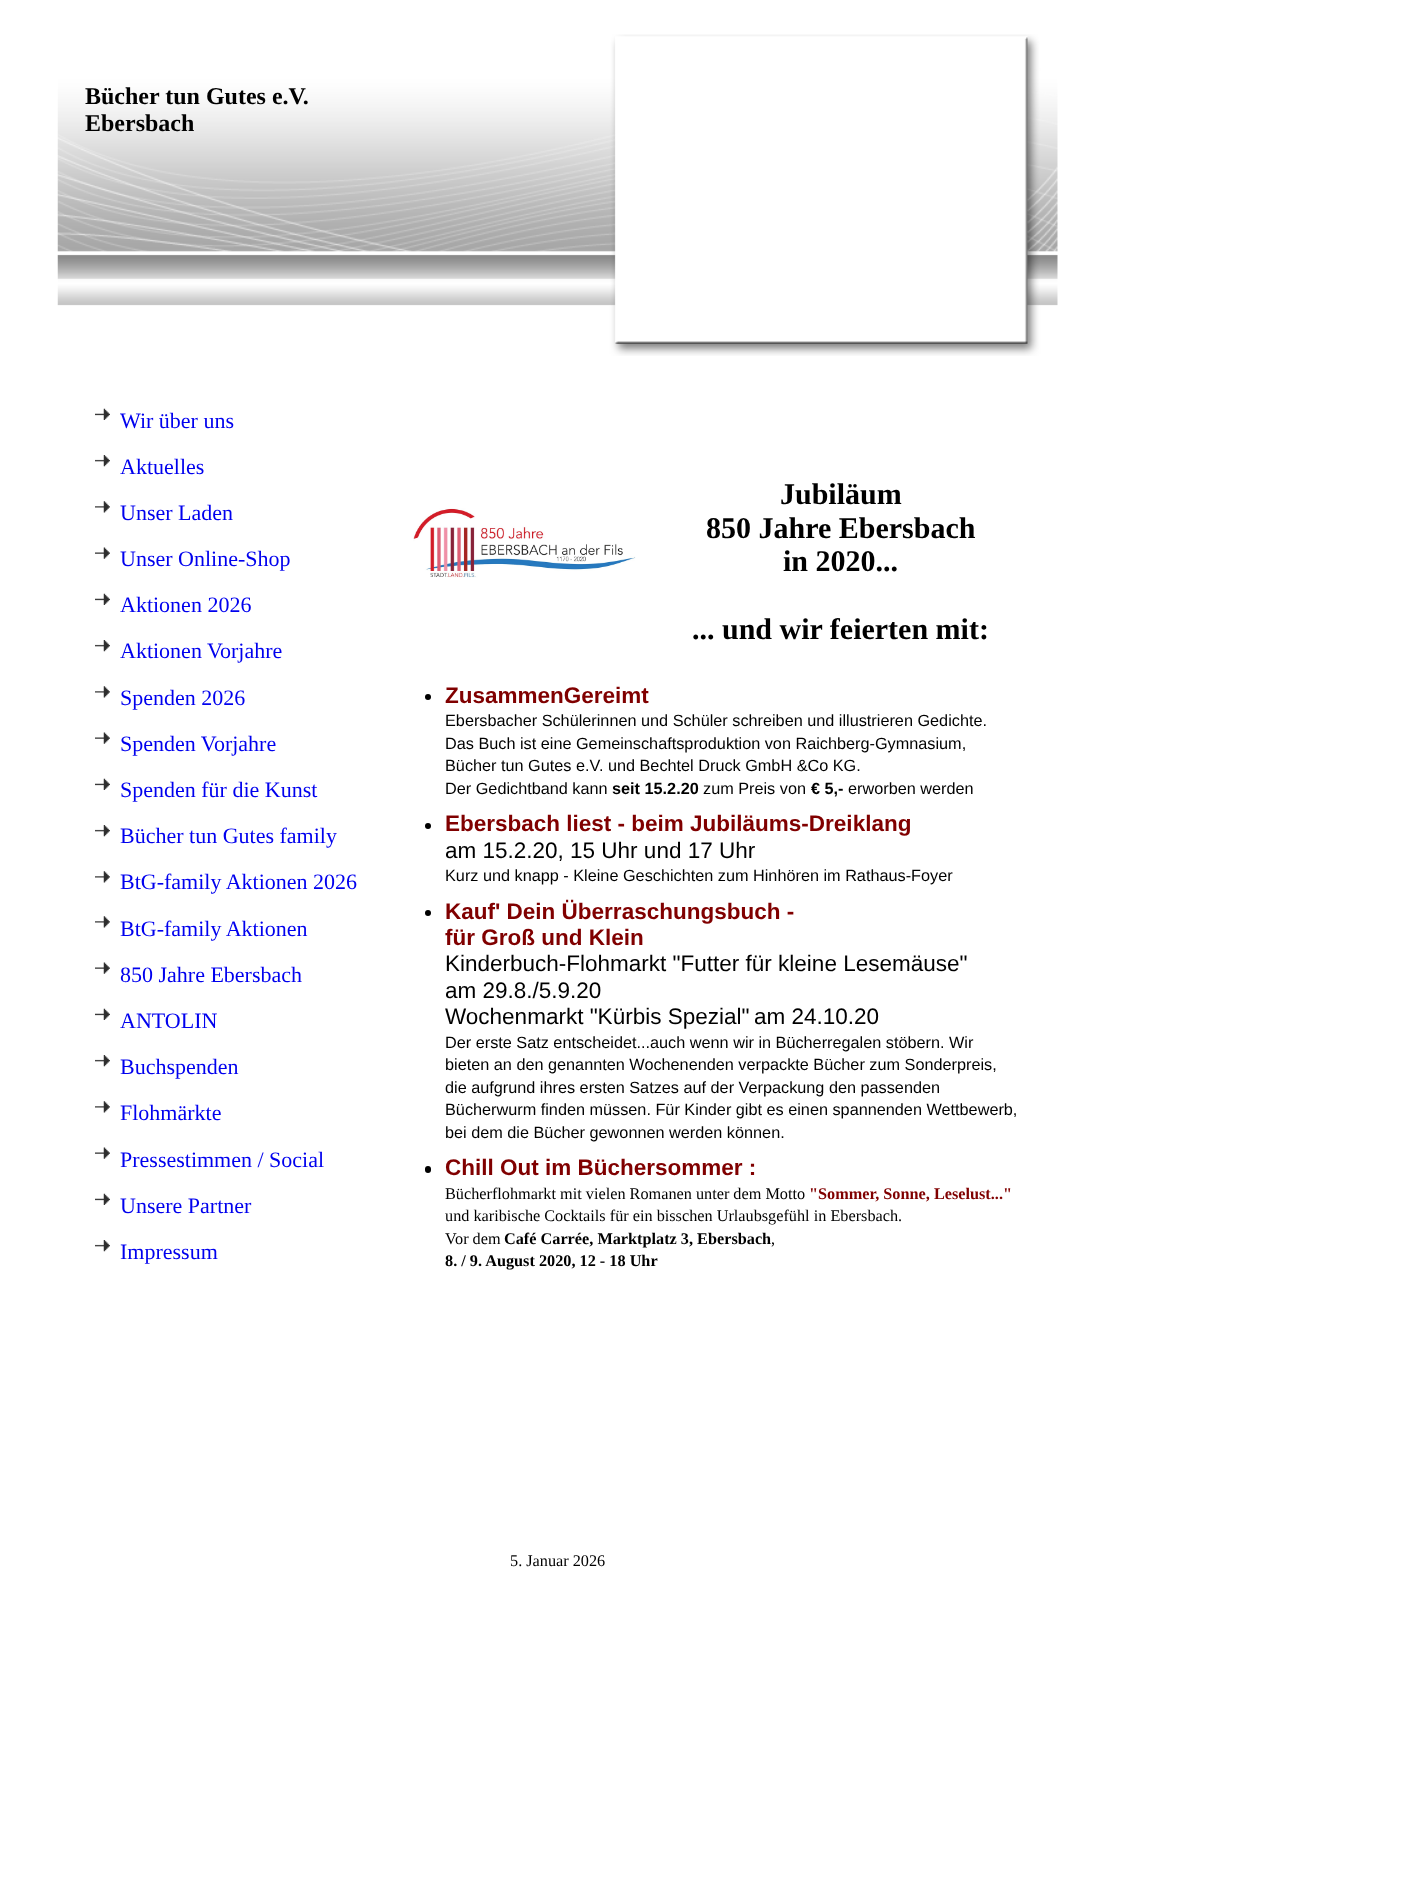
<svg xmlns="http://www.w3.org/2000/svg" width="1414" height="1893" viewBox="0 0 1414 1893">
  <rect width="100%" height="100%" fill="#ffffff"/>
  <image x="57" y="34" width="1001" height="322" href="img1.png"/>
  <text x="85" y="104" font-family="Liberation Serif" font-size="24" font-weight="bold" fill="#000000">Bücher tun Gutes e.V.</text>
  <text x="85" y="131" font-family="Liberation Serif" font-size="24" font-weight="bold" fill="#000000">Ebersbach</text>
  <image x="95" y="408" width="15" height="12" href="img2.png"/>
  <text x="120" y="428" font-family="Liberation Serif" font-size="22" fill="#0000ee">Wir über uns</text>
  <image x="95" y="455" width="15" height="12" href="img3.png"/>
  <text x="120" y="474" font-family="Liberation Serif" font-size="22" fill="#0000ee">Aktuelles</text>
  <image x="95" y="501" width="15" height="12" href="img4.png"/>
  <text x="120" y="520" font-family="Liberation Serif" font-size="22" fill="#0000ee">Unser Laden</text>
  <image x="95" y="547" width="15" height="12" href="img5.png"/>
  <text x="120" y="566" font-family="Liberation Serif" font-size="22" fill="#0000ee">Unser Online-Shop</text>
  <image x="95" y="593" width="15" height="12" href="img2.png"/>
  <text x="120" y="612" font-family="Liberation Serif" font-size="22" fill="#0000ee">Aktionen 2026</text>
  <image x="95" y="640" width="15" height="12" href="img3.png"/>
  <text x="120" y="658" font-family="Liberation Serif" font-size="22" fill="#0000ee">Aktionen Vorjahre</text>
  <image x="95" y="686" width="15" height="12" href="img4.png"/>
  <text x="120" y="705" font-family="Liberation Serif" font-size="22" fill="#0000ee">Spenden 2026</text>
  <image x="95" y="732" width="15" height="12" href="img5.png"/>
  <text x="120" y="751" font-family="Liberation Serif" font-size="22" fill="#0000ee">Spenden Vorjahre</text>
  <image x="95" y="778" width="15" height="12" href="img6.png"/>
  <text x="120" y="797" font-family="Liberation Serif" font-size="22" fill="#0000ee">Spenden für die Kunst</text>
  <image x="95" y="825" width="15" height="12" href="img3.png"/>
  <text x="120" y="843" font-family="Liberation Serif" font-size="22" fill="#0000ee">Bücher tun Gutes family</text>
  <image x="95" y="871" width="15" height="12" href="img4.png"/>
  <text x="120" y="889" font-family="Liberation Serif" font-size="22" fill="#0000ee">BtG-family Aktionen 2026</text>
  <image x="95" y="916" width="15" height="12" href="img4.png"/>
  <text x="120" y="936" font-family="Liberation Serif" font-size="22" fill="#0000ee">BtG-family Aktionen</text>
  <image x="95" y="962" width="15" height="12" href="img5.png"/>
  <text x="120" y="982" font-family="Liberation Serif" font-size="22" fill="#0000ee">850 Jahre Ebersbach</text>
  <image x="95" y="1008" width="15" height="12" href="img2.png"/>
  <text x="120" y="1028" font-family="Liberation Serif" font-size="22" fill="#0000ee">ANTOLIN</text>
  <image x="95" y="1055" width="15" height="12" href="img3.png"/>
  <text x="120" y="1074" font-family="Liberation Serif" font-size="22" fill="#0000ee">Buchspenden</text>
  <image x="95" y="1101" width="15" height="12" href="img4.png"/>
  <text x="120" y="1120" font-family="Liberation Serif" font-size="22" fill="#0000ee">Flohmärkte</text>
  <image x="95" y="1147" width="15" height="12" href="img5.png"/>
  <text x="120" y="1167" font-family="Liberation Serif" font-size="22" fill="#0000ee">Pressestimmen / Social</text>
  <image x="95" y="1193" width="15" height="12" href="img2.png"/>
  <text x="120" y="1213" font-family="Liberation Serif" font-size="22" fill="#0000ee">Unsere Partner</text>
  <image x="95" y="1240" width="15" height="12" href="img3.png"/>
  <text x="120" y="1259" font-family="Liberation Serif" font-size="22" fill="#0000ee">Impressum</text>
  <image x="413" y="508" width="223" height="70" href="img7.png"/>
  <text x="780" y="504" font-family="Liberation Serif" font-size="30" font-weight="bold" fill="#000000">Jubiläum</text>
  <text x="706" y="538" font-family="Liberation Serif" font-size="30" font-weight="bold" fill="#000000">850 Jahre Ebersbach</text>
  <text x="783" y="571" font-family="Liberation Serif" font-size="30" font-weight="bold" fill="#000000">in 2020...</text>
  <text x="692" y="639" font-family="Liberation Serif" font-size="30" font-weight="bold" fill="#000000">... und wir feierten mit:</text>
  <circle cx="428" cy="697" r="3" fill="#000000"/>
  <text x="445" y="703" font-family="Liberation Sans" font-size="22.5" font-weight="bold" fill="#800000">ZusammenGereimt</text>
  <text x="445" y="726" font-family="Liberation Sans" font-size="16.25" fill="#000000">Ebersbacher Schülerinnen und Schüler schreiben und illustrieren Gedichte.</text>
  <text x="445" y="749" font-family="Liberation Sans" font-size="16.25" fill="#000000">Das Buch ist eine Gemeinschaftsproduktion von Raichberg-Gymnasium,</text>
  <text x="445" y="771" font-family="Liberation Sans" font-size="16.25" fill="#000000">Bücher tun Gutes e.V. und Bechtel Druck GmbH &amp;Co KG.</text>
  <text x="445" y="794" font-family="Liberation Sans" font-size="16.25" fill="#000000">Der Gedichtband kann</text>
  <text x="612" y="794" font-family="Liberation Sans" font-size="16.25" font-weight="bold" fill="#000000">seit 15.2.20</text>
  <text x="703" y="794" font-family="Liberation Sans" font-size="16.25" fill="#000000">zum Preis von</text>
  <text x="811" y="794" font-family="Liberation Sans" font-size="16.25" font-weight="bold" fill="#000000">€ 5,-</text>
  <text x="848" y="794" font-family="Liberation Sans" font-size="16.25" fill="#000000">erworben werden</text>
  <circle cx="428" cy="826" r="3" fill="#000000"/>
  <text x="445" y="831" font-family="Liberation Sans" font-size="22.5" font-weight="bold" fill="#800000">Ebersbach liest - beim Jubiläums-Dreiklang</text>
  <text x="445" y="858" font-family="Liberation Sans" font-size="22.5" fill="#000000">am 15.2.20, 15 Uhr und 17 Uhr</text>
  <text x="445" y="881" font-family="Liberation Sans" font-size="16.25" fill="#000000">Kurz und knapp - Kleine Geschichten zum Hinhören im Rathaus-Foyer</text>
  <circle cx="428" cy="913" r="3" fill="#000000"/>
  <text x="445" y="919" font-family="Liberation Sans" font-size="22.5" font-weight="bold" fill="#800000">Kauf' Dein Überraschungsbuch -</text>
  <text x="445" y="945" font-family="Liberation Sans" font-size="22.5" font-weight="bold" fill="#800000">für Groß und Klein</text>
  <text x="445" y="971" font-family="Liberation Sans" font-size="22.5" fill="#000000">Kinderbuch-Flohmarkt "Futter für kleine Lesemäuse"</text>
  <text x="445" y="998" font-family="Liberation Sans" font-size="22.5" fill="#000000">am 29.8./5.9.20</text>
  <text x="445" y="1024" font-family="Liberation Sans" font-size="22.5" fill="#000000">Wochenmarkt "Kürbis Spezial"</text>
  <text x="754" y="1024" font-family="Liberation Sans" font-size="22.5" fill="#000000">am 24.10.20</text>
  <text x="445" y="1048" font-family="Liberation Sans" font-size="16.25" fill="#000000">Der erste Satz entscheidet...auch wenn wir in Bücherregalen stöbern. Wir</text>
  <text x="445" y="1070" font-family="Liberation Sans" font-size="16.25" fill="#000000">bieten an den genannten Wochenenden verpackte Bücher zum Sonderpreis,</text>
  <text x="445" y="1093" font-family="Liberation Sans" font-size="16.25" fill="#000000">die aufgrund ihres ersten Satzes auf der Verpackung den passenden</text>
  <text x="445" y="1115" font-family="Liberation Sans" font-size="16.25" fill="#000000">Bücherwurm finden müssen. Für Kinder gibt es einen spannenden Wettbewerb,</text>
  <text x="445" y="1138" font-family="Liberation Sans" font-size="16.25" fill="#000000">bei dem die Bücher gewonnen werden können.</text>
  <rect x="425" y="1166" width="6" height="7" rx="3" fill="#000000"/>
  <text x="445" y="1175" font-family="Liberation Sans" font-size="22.5" font-weight="bold" fill="#800000">Chill Out im Büchersommer :</text>
  <text x="445" y="1199" font-family="Liberation Serif" font-size="16.25" fill="#000000">Bücherflohmarkt mit vielen Romanen unter dem Motto</text>
  <text x="809" y="1199" font-family="Liberation Serif" font-size="16.25" font-weight="bold" fill="#800000">"Sommer, Sonne, Leselust..."</text>
  <text x="445" y="1221" font-family="Liberation Serif" font-size="16.25" fill="#000000">und karibische Cocktails für ein bisschen Urlaubsgefühl in Ebersbach.</text>
  <text x="445" y="1244" font-family="Liberation Serif" font-size="16.25" fill="#000000">V</text>
  <text x="455" y="1244" font-family="Liberation Serif" font-size="16.25" fill="#000000">or dem</text>
  <text x="504" y="1244" font-family="Liberation Serif" font-size="16.25" font-weight="bold" fill="#000000">Café Carrée, Marktplatz 3, Ebersbach</text>
  <text x="771" y="1244" font-family="Liberation Serif" font-size="16.25" fill="#000000">,</text>
  <text x="445" y="1266" font-family="Liberation Serif" font-size="16.25" font-weight="bold" fill="#000000">8. / 9. August 2020, 12 - 18 Uhr</text>
  <text x="510" y="1566" font-family="Liberation Serif" font-size="16.25" fill="#000000">5. Januar 2026</text>
</svg>
